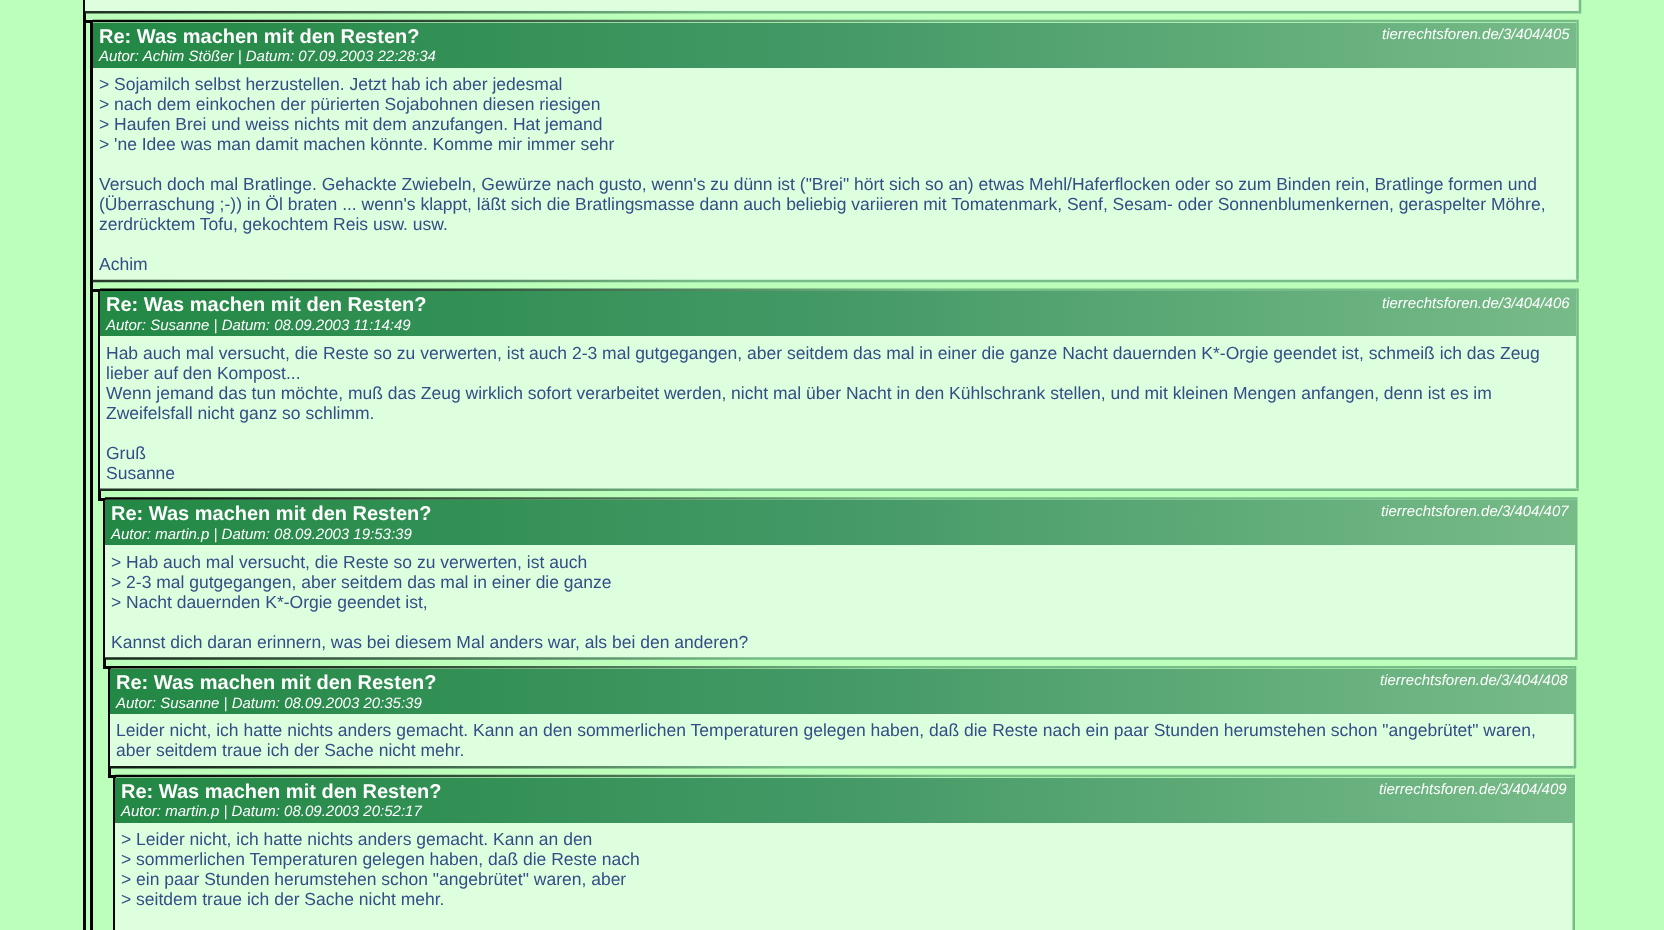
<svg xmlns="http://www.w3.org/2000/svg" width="1664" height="930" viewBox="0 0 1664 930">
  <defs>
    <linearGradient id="g1" gradientUnits="userSpaceOnUse" x1="93" y1="45" x2="1576" y2="45"><stop offset="0" stop-color="#228844"/><stop offset="0.5" stop-color="#449966"/><stop offset="1" stop-color="#77bb88"/></linearGradient>
    <linearGradient id="g2" gradientUnits="userSpaceOnUse" x1="100" y1="314" x2="1576" y2="314"><stop offset="0" stop-color="#228844"/><stop offset="0.5" stop-color="#449966"/><stop offset="1" stop-color="#77bb88"/></linearGradient>
    <linearGradient id="g3" gradientUnits="userSpaceOnUse" x1="105" y1="523" x2="1575" y2="522"><stop offset="0" stop-color="#228844"/><stop offset="0.5" stop-color="#449966"/><stop offset="1" stop-color="#77bb88"/></linearGradient>
    <linearGradient id="g4" gradientUnits="userSpaceOnUse" x1="110" y1="691" x2="1574" y2="691"><stop offset="0" stop-color="#228844"/><stop offset="0.5" stop-color="#449966"/><stop offset="1" stop-color="#77bb88"/></linearGradient>
    <linearGradient id="g5" gradientUnits="userSpaceOnUse" x1="115" y1="800" x2="1573" y2="800"><stop offset="0" stop-color="#228844"/><stop offset="0.5" stop-color="#449966"/><stop offset="1" stop-color="#77bb88"/></linearGradient>
  </defs>
  <rect width="100%" height="100%" fill="#bbffbb"/>
  <rect x="83" y="0" width="3" height="930" fill="#000000"/>
  <rect x="85" y="0" width="1494" height="11" fill="#ddffdd"/>
  <image x="85" y="0" width="1497" height="14" href="img1.png"/>
  <rect x="85" y="20" width="8" height="3" fill="#000000"/>
  <rect x="90" y="20" width="3" height="263" fill="#000000"/>
  <rect x="93" y="68" width="1483" height="212" fill="#ddffdd"/>
  <image x="92" y="19" width="1487" height="264" href="img2.png"/>
  <rect x="93" y="23" width="1483" height="45" fill="url(#g1)"/>
  <text x="99" y="43" font-family="Liberation Sans" font-size="20" font-weight="bold" fill="#ffffff">Re: Was machen mit den Resten?</text>
  <text x="1382" y="39" font-family="Liberation Sans" font-size="15" font-style="italic" fill="#ffffff">tierrechtsforen.de/3/404/405</text>
  <text x="99" y="61" font-family="Liberation Sans" font-size="15" font-style="italic" fill="#ffffff">Autor: Achim Stößer | Datum: 07.09.2003 22:28:34</text>
  <text x="99" y="90" font-family="Liberation Sans" font-size="17.5" fill="#344d88">&gt; Sojamilch selbst herzustellen. Jetzt hab ich aber jedesmal</text>
  <text x="99" y="110" font-family="Liberation Sans" font-size="17.5" fill="#344d88">&gt; nach dem einkochen der pürierten Sojabohnen diesen riesigen</text>
  <text x="99" y="130" font-family="Liberation Sans" font-size="17.5" fill="#344d88">&gt; Haufen Brei und weiss nichts mit dem anzufangen. Hat jemand</text>
  <text x="99" y="150" font-family="Liberation Sans" font-size="17.5" fill="#344d88">&gt; 'ne Idee was man damit machen könnte. Komme mir immer sehr</text>
  <text x="99" y="190" font-family="Liberation Sans" font-size="17.5" fill="#344d88">Versuch doch mal Bratlinge. Gehackte Zwiebeln, Gewürze nach gusto, wenn's zu dünn ist ("Brei" hört sich so an) etwas Mehl/Haferflocken oder so zum Binden rein, Bratlinge formen und</text>
  <text x="99" y="210" font-family="Liberation Sans" font-size="17.5" fill="#344d88">(Überraschung ;-)) in Öl braten ... wenn's klappt, läßt sich die Bratlingsmasse dann auch beliebig variieren mit Tomatenmark, Senf, Sesam- oder Sonnenblumenkernen, geraspelter Möhre,</text>
  <text x="99" y="230" font-family="Liberation Sans" font-size="17.5" fill="#344d88">zerdrücktem Tofu, gekochtem Reis usw. usw.</text>
  <text x="99" y="270" font-family="Liberation Sans" font-size="17.5" fill="#344d88">Achim</text>
  <rect x="90" y="283" width="3" height="647" fill="#000000"/>
  <rect x="93" y="289" width="7" height="3" fill="#000000"/>
  <rect x="98" y="289" width="2" height="202" fill="#000000"/>
  <rect x="100" y="336" width="1476" height="153" fill="#ddffdd"/>
  <image x="100" y="288" width="1479" height="203" href="img3.png"/>
  <rect x="100" y="291" width="1476" height="45" fill="url(#g2)"/>
  <text x="106" y="311" font-family="Liberation Sans" font-size="20" font-weight="bold" fill="#ffffff">Re: Was machen mit den Resten?</text>
  <text x="1382" y="308" font-family="Liberation Sans" font-size="15" font-style="italic" fill="#ffffff">tierrechtsforen.de/3/404/406</text>
  <text x="106" y="330" font-family="Liberation Sans" font-size="15" font-style="italic" fill="#ffffff">Autor: Susanne | Datum: 08.09.2003 11:14:49</text>
  <text x="106" y="359" font-family="Liberation Sans" font-size="17.5" fill="#344d88">Hab auch mal versucht, die Reste so zu verwerten, ist auch 2-3 mal gutgegangen, aber seitdem das mal in einer die ganze Nacht dauernden K*-Orgie geendet ist, schmeiß ich das Zeug</text>
  <text x="106" y="379" font-family="Liberation Sans" font-size="17.5" fill="#344d88">lieber auf den Kompost...</text>
  <text x="106" y="399" font-family="Liberation Sans" font-size="17.5" fill="#344d88">Wenn jemand das tun möchte, muß das Zeug wirklich sofort verarbeitet werden, nicht mal über Nacht in den Kühlschrank stellen, und mit kleinen Mengen anfangen, denn ist es im</text>
  <text x="106" y="419" font-family="Liberation Sans" font-size="17.5" fill="#344d88">Zweifelsfall nicht ganz so schlimm.</text>
  <text x="106" y="459" font-family="Liberation Sans" font-size="17.5" fill="#344d88">Gruß</text>
  <text x="106" y="479" font-family="Liberation Sans" font-size="17.5" fill="#344d88">Susanne</text>
  <rect x="98" y="491" width="3" height="7" fill="#000000"/>
  <rect x="98" y="498" width="7" height="3" fill="#000000"/>
  <rect x="103" y="498" width="3" height="162" fill="#000000"/>
  <rect x="105" y="545" width="1470" height="113" fill="#ddffdd"/>
  <image x="105" y="497" width="1473" height="163" href="img4.png"/>
  <rect x="105" y="500" width="1470" height="45" fill="url(#g3)"/>
  <text x="111" y="520" font-family="Liberation Sans" font-size="20" font-weight="bold" fill="#ffffff">Re: Was machen mit den Resten?</text>
  <text x="1381" y="516" font-family="Liberation Sans" font-size="15" font-style="italic" fill="#ffffff">tierrechtsforen.de/3/404/407</text>
  <text x="111" y="539" font-family="Liberation Sans" font-size="15" font-style="italic" fill="#ffffff">Autor: martin.p | Datum: 08.09.2003 19:53:39</text>
  <text x="111" y="568" font-family="Liberation Sans" font-size="17.5" fill="#344d88">&gt; Hab auch mal versucht, die Reste so zu verwerten, ist auch</text>
  <text x="111" y="588" font-family="Liberation Sans" font-size="17.5" fill="#344d88">&gt; 2-3 mal gutgegangen, aber seitdem das mal in einer die ganze</text>
  <text x="111" y="608" font-family="Liberation Sans" font-size="17.5" fill="#344d88">&gt; Nacht dauernden K*-Orgie geendet ist,</text>
  <text x="111" y="648" font-family="Liberation Sans" font-size="17.5" fill="#344d88">Kannst dich daran erinnern, was bei diesem Mal anders war, als bei den anderen?</text>
  <rect x="103" y="660" width="3" height="6" fill="#000000"/>
  <rect x="103" y="666" width="7" height="3" fill="#000000"/>
  <rect x="108" y="666" width="3" height="103" fill="#000000"/>
  <rect x="110" y="714" width="1464" height="52" fill="#ddffdd"/>
  <image x="110" y="666" width="1467" height="103" href="img5.png"/>
  <rect x="110" y="669" width="1464" height="45" fill="url(#g4)"/>
  <text x="116" y="689" font-family="Liberation Sans" font-size="20" font-weight="bold" fill="#ffffff">Re: Was machen mit den Resten?</text>
  <text x="1380" y="685" font-family="Liberation Sans" font-size="15" font-style="italic" fill="#ffffff">tierrechtsforen.de/3/404/408</text>
  <text x="116" y="708" font-family="Liberation Sans" font-size="15" font-style="italic" fill="#ffffff">Autor: Susanne | Datum: 08.09.2003 20:35:39</text>
  <text x="116" y="736" font-family="Liberation Sans" font-size="17.5" fill="#344d88">Leider nicht, ich hatte nichts anders gemacht. Kann an den sommerlichen Temperaturen gelegen haben, daß die Reste nach ein paar Stunden herumstehen schon "angebrütet" waren,</text>
  <text x="116" y="756" font-family="Liberation Sans" font-size="17.5" fill="#344d88">aber seitdem traue ich der Sache nicht mehr.</text>
  <rect x="108" y="769" width="3" height="6" fill="#000000"/>
  <rect x="108" y="775" width="7" height="3" fill="#000000"/>
  <rect x="113" y="775" width="3" height="155" fill="#000000"/>
  <rect x="115" y="823" width="1458" height="107" fill="#ddffdd"/>
  <image x="115" y="774" width="1460" height="156" href="img6.png"/>
  <rect x="115" y="778" width="1458" height="45" fill="url(#g5)"/>
  <text x="121" y="798" font-family="Liberation Sans" font-size="20" font-weight="bold" fill="#ffffff">Re: Was machen mit den Resten?</text>
  <text x="1379" y="794" font-family="Liberation Sans" font-size="15" font-style="italic" fill="#ffffff">tierrechtsforen.de/3/404/409</text>
  <text x="121" y="816" font-family="Liberation Sans" font-size="15" font-style="italic" fill="#ffffff">Autor: martin.p | Datum: 08.09.2003 20:52:17</text>
  <text x="121" y="845" font-family="Liberation Sans" font-size="17.5" fill="#344d88">&gt; Leider nicht, ich hatte nichts anders gemacht. Kann an den</text>
  <text x="121" y="865" font-family="Liberation Sans" font-size="17.5" fill="#344d88">&gt; sommerlichen Temperaturen gelegen haben, daß die Reste nach</text>
  <text x="121" y="885" font-family="Liberation Sans" font-size="17.5" fill="#344d88">&gt; ein paar Stunden herumstehen schon "angebrütet" waren, aber</text>
  <text x="121" y="905" font-family="Liberation Sans" font-size="17.5" fill="#344d88">&gt; seitdem traue ich der Sache nicht mehr.</text>
</svg>
